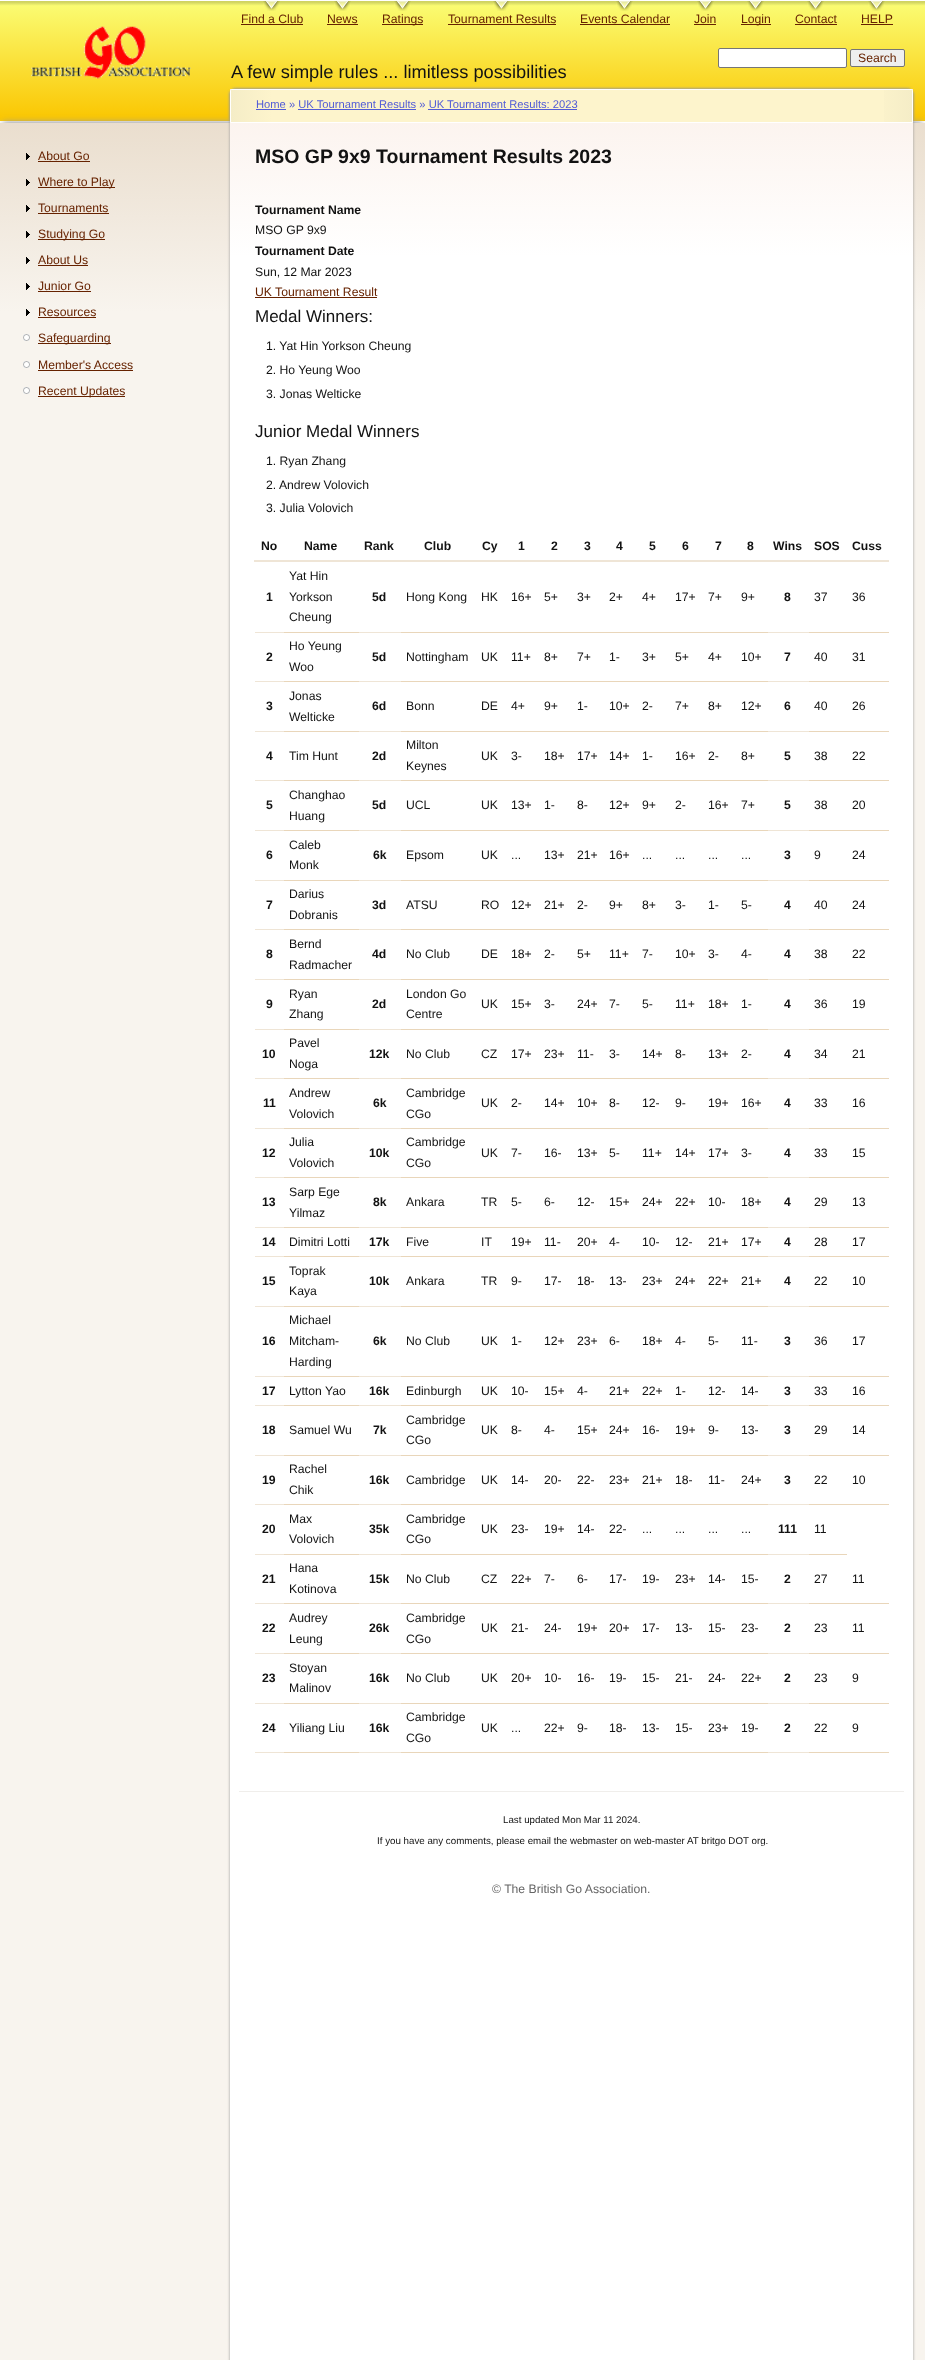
<svg xmlns="http://www.w3.org/2000/svg" width="925" height="2360" viewBox="0 0 925 2360">
  <defs>
    <linearGradient id="g1" gradientUnits="userSpaceOnUse" x1="463" y1="1" x2="463" y2="121"><stop offset="0.01" stop-color="#d0d361"/><stop offset="0.04" stop-color="#fafb71"/><stop offset="0.97" stop-color="#fac703"/></linearGradient>
    <filter id="blur1" x="-50%" y="-200%" width="200%" height="500%"><feGaussianBlur stdDeviation="3"/></filter>
    <linearGradient id="g2" gradientUnits="userSpaceOnUse" x1="462" y1="123" x2="463" y2="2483"><stop offset="0" stop-color="#eadece"/><stop offset="0.08" stop-color="#f8f4ee"/></linearGradient>
    <filter id="blur2" x="-50%" y="-200%" width="200%" height="500%"><feGaussianBlur stdDeviation="1.5"/></filter>
    <linearGradient id="g3" gradientUnits="userSpaceOnUse" x1="571" y1="89" x2="572" y2="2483"><stop offset="0" stop-color="#fbf1eb"/><stop offset="0.07" stop-color="#ffffff"/></linearGradient>
    <linearGradient id="g4" gradientUnits="userSpaceOnUse" x1="231" y1="106" x2="912" y2="106"><stop offset="0" stop-color="#f5edc7"/><stop offset="0.06" stop-color="#fdf4cc"/></linearGradient>
    <linearGradient id="g5" gradientUnits="userSpaceOnUse" x1="912" y1="106" x2="231" y2="106"><stop offset="0" stop-color="#f5edc7"/><stop offset="0.06" stop-color="#fdf4cc"/><stop offset="0.06" stop-color="#fdf4cc" stop-opacity="0"/></linearGradient>
  </defs>
  <rect width="100%" height="100%" fill="#ffffff"/>
  <rect x="0" y="1" width="925" height="120" fill="url(#g1)"/>
  <image x="263" y="1" width="17" height="10" href="img1.png"/>
  <text x="241" y="23" font-family="Liberation Sans" font-size="12.2" fill="#662200">Find a Club</text>
  <rect x="241" y="24" width="62" height="1" fill="#662200"/>
  <image x="334" y="1" width="17" height="10" href="img1.png"/>
  <text x="327" y="23" font-family="Liberation Sans" font-size="12.2" fill="#662200">News</text>
  <rect x="327" y="24" width="31" height="1" fill="#662200"/>
  <image x="394" y="1" width="17" height="10" href="img1.png"/>
  <rect x="382" y="24" width="41" height="1" fill="#662200"/>
  <text x="382" y="23" font-family="Liberation Sans" font-size="12.2" fill="#662200">Ratings</text>
  <image x="493" y="1" width="17" height="10" href="img1.png"/>
  <text x="448" y="23" font-family="Liberation Sans" font-size="12.2" fill="#662200">Tournament Results</text>
  <rect x="448" y="24" width="108" height="1" fill="#662200"/>
  <image x="616" y="1" width="17" height="10" href="img1.png"/>
  <text x="580" y="23" font-family="Liberation Sans" font-size="12.2" fill="#662200">Events Calendar</text>
  <rect x="580" y="24" width="90" height="1" fill="#662200"/>
  <image x="697" y="1" width="17" height="10" href="img1.png"/>
  <text x="694" y="23" font-family="Liberation Sans" font-size="12.2" fill="#662200">Join</text>
  <rect x="694" y="24" width="22" height="1" fill="#662200"/>
  <image x="747" y="1" width="17" height="10" href="img1.png"/>
  <rect x="741" y="24" width="30" height="1" fill="#662200"/>
  <text x="741" y="23" font-family="Liberation Sans" font-size="12.2" fill="#662200">Login</text>
  <image x="807" y="1" width="17" height="10" href="img1.png"/>
  <text x="795" y="23" font-family="Liberation Sans" font-size="12.2" fill="#662200">Contact</text>
  <rect x="795" y="24" width="42" height="1" fill="#662200"/>
  <image x="868" y="1" width="17" height="10" href="img1.png"/>
  <text x="861" y="23" font-family="Liberation Sans" font-size="12.2" fill="#662200">HELP</text>
  <rect x="861" y="24" width="32" height="1" fill="#662200"/>
  <rect x="718.5" y="48.5" width="128" height="19" rx="1.5" fill="#ffffff" stroke="#767676"/>
  <rect x="850.5" y="49.5" width="54" height="17" rx="1.5" fill="#efefef" stroke="#767676"/>
  <text x="858" y="62" font-family="Liberation Sans" font-size="12.2" fill="#662200">Search</text>
  <image x="31" y="26" width="160" height="53" href="img2.png"/>
  <text x="231" y="78" font-family="Liberation Sans" font-size="18.25" fill="#121212">A few simple rules ... limitless possibilities</text>
  <rect x="3" y="122" width="919" height="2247" fill="#999999" filter="url(#blur1)"/>
  <rect x="0" y="123" width="925" height="2237" fill="url(#g2)"/>
  <image x="26" y="153" width="4" height="7" href="img3.png"/>
  <text x="38" y="160" font-family="Liberation Sans" font-size="12.2" fill="#662200">About Go</text>
  <rect x="38" y="161" width="52" height="1" fill="#662200"/>
  <image x="26" y="179" width="4" height="7" href="img4.png"/>
  <rect x="38" y="187" width="77" height="1" fill="#662200"/>
  <text x="38" y="186" font-family="Liberation Sans" font-size="12.2" fill="#662200">Where to Play</text>
  <image x="26" y="205" width="4" height="7" href="img5.png"/>
  <text x="38" y="212" font-family="Liberation Sans" font-size="12.2" fill="#662200">Tournaments</text>
  <rect x="38" y="213" width="71" height="1" fill="#662200"/>
  <image x="26" y="231" width="4" height="7" href="img6.png"/>
  <rect x="38" y="239" width="67" height="1" fill="#662200"/>
  <text x="38" y="238" font-family="Liberation Sans" font-size="12.2" fill="#662200">Studying Go</text>
  <image x="26" y="257" width="4" height="7" href="img7.png"/>
  <text x="38" y="264" font-family="Liberation Sans" font-size="12.2" fill="#662200">About Us</text>
  <rect x="38" y="265" width="50" height="1" fill="#662200"/>
  <image x="26" y="283" width="4" height="7" href="img8.png"/>
  <text x="38" y="290" font-family="Liberation Sans" font-size="12.2" fill="#662200">Junior Go</text>
  <rect x="38" y="291" width="53" height="1" fill="#662200"/>
  <image x="26" y="309" width="4" height="7" href="img9.png"/>
  <text x="38" y="316" font-family="Liberation Sans" font-size="12.2" fill="#662200">Resources</text>
  <rect x="38" y="317" width="58" height="1" fill="#662200"/>
  <image x="23" y="334" width="7" height="7" href="img10.png"/>
  <rect x="38" y="343" width="73" height="1" fill="#662200"/>
  <text x="38" y="342" font-family="Liberation Sans" font-size="12.2" fill="#662200">Safeguarding</text>
  <image x="23" y="361" width="7" height="7" href="img10.png"/>
  <text x="38" y="369" font-family="Liberation Sans" font-size="12.2" fill="#662200">Member's Access</text>
  <rect x="38" y="370" width="95" height="1" fill="#662200"/>
  <image x="23" y="387" width="7" height="7" href="img10.png"/>
  <rect x="38" y="396" width="87" height="1" fill="#662200"/>
  <text x="38" y="395" font-family="Liberation Sans" font-size="12.2" fill="#662200">Recent Updates</text>
  <rect x="236" y="92" width="677" height="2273" fill="#999999" filter="url(#blur2)"/>
  <rect x="230" y="92" width="677" height="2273" fill="#999999" filter="url(#blur2)"/>
  <rect x="233" y="89" width="677" height="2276" fill="#999999" filter="url(#blur2)"/>
  <rect x="230" y="89" width="683" height="2271" fill="url(#g3)"/>
  <rect x="236" y="92" width="677" height="28" fill="#999999" filter="url(#blur2)"/>
  <rect x="230" y="92" width="677" height="28" fill="#999999" filter="url(#blur2)"/>
  <rect x="233" y="89" width="677" height="28" fill="#999999" filter="url(#blur2)"/>
  <rect x="231" y="89" width="681" height="33" fill="url(#g4)"/>
  <path d="M232 89.5H911C912 89.5 912.5 90 912.5 91V122.5H230.5V91C230.5 90 231 89.5 232 89.5Z" fill="none" stroke="#ffffff"/>
  <rect x="884" y="90" width="28" height="32" fill="url(#g5)"/>
  <text x="256" y="108" font-family="Liberation Sans" font-size="11.2" fill="#525cd6">Home » UK Tournament Results » UK Tournament Results: 2023</text>
  <rect x="256" y="109" width="30" height="1" fill="#525cd6"/>
  <rect x="298" y="109" width="118" height="1" fill="#525cd6"/>
  <rect x="428" y="109" width="149" height="1" fill="#525cd6"/>
  <text x="255" y="163" font-family="Liberation Sans" font-size="19.5" font-weight="bold" fill="#121212">MSO GP 9x9 Tournament Results 2023</text>
  <rect x="239" y="1791" width="665" height="1" fill="#f0eeeb"/>
  <text x="255" y="214" font-family="Liberation Sans" font-size="12.2" font-weight="bold" fill="#121212">Tournament Name</text>
  <text x="255" y="234" font-family="Liberation Sans" font-size="12.2" fill="#121212">MSO GP 9x9</text>
  <text x="255" y="255" font-family="Liberation Sans" font-size="12.2" font-weight="bold" fill="#121212">Tournament Date</text>
  <text x="255" y="276" font-family="Liberation Sans" font-size="12.2" fill="#121212">Sun, 12 Mar 2023</text>
  <text x="255" y="296" font-family="Liberation Sans" font-size="12.2" fill="#662200">UK Tournament Result</text>
  <rect x="255" y="297" width="122" height="1" fill="#662200"/>
  <text x="255" y="322" font-family="Liberation Sans" font-size="17" fill="#121212">Medal Winners:</text>
  <text x="266" y="350" font-family="Liberation Sans" font-size="12.2" fill="#121212">1. Yat Hin Yorkson Cheung</text>
  <text x="266" y="374" font-family="Liberation Sans" font-size="12.2" fill="#121212">2. Ho Yeung Woo</text>
  <text x="266" y="398" font-family="Liberation Sans" font-size="12.2" fill="#121212">3. Jonas Welticke</text>
  <text x="255" y="437" font-family="Liberation Sans" font-size="17" fill="#121212">Junior Medal Winners</text>
  <text x="266" y="465" font-family="Liberation Sans" font-size="12.2" fill="#121212">1. Ryan Zhang</text>
  <text x="266" y="489" font-family="Liberation Sans" font-size="12.2" fill="#121212">2. Andrew Volovich</text>
  <text x="266" y="512" font-family="Liberation Sans" font-size="12.2" fill="#121212">3. Julia Volovich</text>
  <text x="261" y="550" font-family="Liberation Sans" font-size="12.2" font-weight="bold" fill="#121212">No</text>
  <text x="304" y="550" font-family="Liberation Sans" font-size="12.2" font-weight="bold" fill="#121212">Name</text>
  <text x="364" y="550" font-family="Liberation Sans" font-size="12.2" font-weight="bold" fill="#121212">Rank</text>
  <text x="424" y="550" font-family="Liberation Sans" font-size="12.2" font-weight="bold" fill="#121212">Club</text>
  <text x="482" y="550" font-family="Liberation Sans" font-size="12.2" font-weight="bold" fill="#121212">Cy</text>
  <text x="518" y="550" font-family="Liberation Sans" font-size="12.2" font-weight="bold" fill="#121212">1</text>
  <text x="551" y="550" font-family="Liberation Sans" font-size="12.2" font-weight="bold" fill="#121212">2</text>
  <text x="584" y="550" font-family="Liberation Sans" font-size="12.2" font-weight="bold" fill="#121212">3</text>
  <text x="616" y="550" font-family="Liberation Sans" font-size="12.2" font-weight="bold" fill="#121212">4</text>
  <text x="649" y="550" font-family="Liberation Sans" font-size="12.2" font-weight="bold" fill="#121212">5</text>
  <text x="682" y="550" font-family="Liberation Sans" font-size="12.2" font-weight="bold" fill="#121212">6</text>
  <text x="715" y="550" font-family="Liberation Sans" font-size="12.2" font-weight="bold" fill="#121212">7</text>
  <text x="747" y="550" font-family="Liberation Sans" font-size="12.2" font-weight="bold" fill="#121212">8</text>
  <text x="773" y="550" font-family="Liberation Sans" font-size="12.2" font-weight="bold" fill="#121212">Wins</text>
  <text x="814" y="550" font-family="Liberation Sans" font-size="12.2" font-weight="bold" fill="#121212">SOS</text>
  <rect x="254" y="560" width="635" height="2" fill="#efe5d6"/>
  <text x="852" y="550" font-family="Liberation Sans" font-size="12.2" font-weight="bold" fill="#121212">Cuss</text>
  <rect x="808" y="632" width="81" height="1" fill="#e9d6ba"/>
  <rect x="767" y="632" width="42" height="1" fill="#efe5d6"/>
  <rect x="400" y="632" width="368" height="1" fill="#e9d6ba"/>
  <rect x="358" y="632" width="43" height="1" fill="#efe5d6"/>
  <rect x="283" y="632" width="76" height="1" fill="#e9d6ba"/>
  <rect x="255" y="632" width="29" height="1" fill="#efe5d6"/>
  <text x="266" y="601" font-family="Liberation Sans" font-size="12.2" font-weight="bold" fill="#121212">1</text>
  <text x="289" y="580" font-family="Liberation Sans" font-size="12.2" fill="#121212">Yat Hin</text>
  <text x="289" y="601" font-family="Liberation Sans" font-size="12.2" fill="#121212">Yorkson</text>
  <text x="289" y="621" font-family="Liberation Sans" font-size="12.2" fill="#121212">Cheung</text>
  <text x="372" y="601" font-family="Liberation Sans" font-size="12.2" font-weight="bold" fill="#121212">5d</text>
  <text x="406" y="601" font-family="Liberation Sans" font-size="12.2" fill="#121212">Hong Kong</text>
  <text x="481" y="601" font-family="Liberation Sans" font-size="12.2" fill="#121212">HK</text>
  <text x="511" y="601" font-family="Liberation Sans" font-size="12.2" fill="#121212">16+</text>
  <text x="544" y="601" font-family="Liberation Sans" font-size="12.2" fill="#121212">5+</text>
  <text x="577" y="601" font-family="Liberation Sans" font-size="12.2" fill="#121212">3+</text>
  <text x="609" y="601" font-family="Liberation Sans" font-size="12.2" fill="#121212">2+</text>
  <text x="642" y="601" font-family="Liberation Sans" font-size="12.2" fill="#121212">4+</text>
  <text x="675" y="601" font-family="Liberation Sans" font-size="12.2" fill="#121212">17+</text>
  <text x="708" y="601" font-family="Liberation Sans" font-size="12.2" fill="#121212">7+</text>
  <text x="741" y="601" font-family="Liberation Sans" font-size="12.2" fill="#121212">9+</text>
  <text x="784" y="601" font-family="Liberation Sans" font-size="12.2" font-weight="bold" fill="#121212">8</text>
  <text x="814" y="601" font-family="Liberation Sans" font-size="12.2" fill="#121212">37</text>
  <text x="852" y="601" font-family="Liberation Sans" font-size="12.2" fill="#121212">36</text>
  <rect x="808" y="681" width="81" height="1" fill="#e9d6ba"/>
  <rect x="767" y="681" width="42" height="1" fill="#efe5d6"/>
  <rect x="400" y="681" width="368" height="1" fill="#e9d6ba"/>
  <rect x="358" y="681" width="43" height="1" fill="#efe5d6"/>
  <rect x="283" y="681" width="76" height="1" fill="#e9d6ba"/>
  <rect x="255" y="681" width="29" height="1" fill="#efe5d6"/>
  <text x="266" y="661" font-family="Liberation Sans" font-size="12.2" font-weight="bold" fill="#121212">2</text>
  <text x="289" y="650" font-family="Liberation Sans" font-size="12.2" fill="#121212">Ho Yeung</text>
  <text x="289" y="671" font-family="Liberation Sans" font-size="12.2" fill="#121212">Woo</text>
  <text x="372" y="661" font-family="Liberation Sans" font-size="12.2" font-weight="bold" fill="#121212">5d</text>
  <text x="406" y="661" font-family="Liberation Sans" font-size="12.2" fill="#121212">Nottingham</text>
  <text x="481" y="661" font-family="Liberation Sans" font-size="12.2" fill="#121212">UK</text>
  <text x="511" y="661" font-family="Liberation Sans" font-size="12.2" fill="#121212">11+</text>
  <text x="544" y="661" font-family="Liberation Sans" font-size="12.2" fill="#121212">8+</text>
  <text x="577" y="661" font-family="Liberation Sans" font-size="12.2" fill="#121212">7+</text>
  <text x="609" y="661" font-family="Liberation Sans" font-size="12.2" fill="#121212">1-</text>
  <text x="642" y="661" font-family="Liberation Sans" font-size="12.2" fill="#121212">3+</text>
  <text x="675" y="661" font-family="Liberation Sans" font-size="12.2" fill="#121212">5+</text>
  <text x="708" y="661" font-family="Liberation Sans" font-size="12.2" fill="#121212">4+</text>
  <text x="741" y="661" font-family="Liberation Sans" font-size="12.2" fill="#121212">10+</text>
  <text x="784" y="661" font-family="Liberation Sans" font-size="12.2" font-weight="bold" fill="#121212">7</text>
  <text x="814" y="661" font-family="Liberation Sans" font-size="12.2" fill="#121212">40</text>
  <text x="852" y="661" font-family="Liberation Sans" font-size="12.2" fill="#121212">31</text>
  <rect x="808" y="731" width="81" height="1" fill="#e9d6ba"/>
  <rect x="767" y="731" width="42" height="1" fill="#efe5d6"/>
  <rect x="400" y="731" width="368" height="1" fill="#e9d6ba"/>
  <rect x="358" y="731" width="43" height="1" fill="#efe5d6"/>
  <rect x="283" y="731" width="76" height="1" fill="#e9d6ba"/>
  <rect x="255" y="731" width="29" height="1" fill="#efe5d6"/>
  <text x="266" y="710" font-family="Liberation Sans" font-size="12.2" font-weight="bold" fill="#121212">3</text>
  <text x="289" y="700" font-family="Liberation Sans" font-size="12.2" fill="#121212">Jonas</text>
  <text x="289" y="721" font-family="Liberation Sans" font-size="12.2" fill="#121212">Welticke</text>
  <text x="372" y="710" font-family="Liberation Sans" font-size="12.2" font-weight="bold" fill="#121212">6d</text>
  <text x="406" y="710" font-family="Liberation Sans" font-size="12.2" fill="#121212">Bonn</text>
  <text x="481" y="710" font-family="Liberation Sans" font-size="12.2" fill="#121212">DE</text>
  <text x="511" y="710" font-family="Liberation Sans" font-size="12.2" fill="#121212">4+</text>
  <text x="544" y="710" font-family="Liberation Sans" font-size="12.2" fill="#121212">9+</text>
  <text x="577" y="710" font-family="Liberation Sans" font-size="12.2" fill="#121212">1-</text>
  <text x="609" y="710" font-family="Liberation Sans" font-size="12.2" fill="#121212">10+</text>
  <text x="642" y="710" font-family="Liberation Sans" font-size="12.2" fill="#121212">2-</text>
  <text x="675" y="710" font-family="Liberation Sans" font-size="12.2" fill="#121212">7+</text>
  <text x="708" y="710" font-family="Liberation Sans" font-size="12.2" fill="#121212">8+</text>
  <text x="741" y="710" font-family="Liberation Sans" font-size="12.2" fill="#121212">12+</text>
  <text x="784" y="710" font-family="Liberation Sans" font-size="12.2" font-weight="bold" fill="#121212">6</text>
  <text x="814" y="710" font-family="Liberation Sans" font-size="12.2" fill="#121212">40</text>
  <text x="852" y="710" font-family="Liberation Sans" font-size="12.2" fill="#121212">26</text>
  <rect x="808" y="780" width="81" height="1" fill="#e9d6ba"/>
  <rect x="767" y="780" width="42" height="1" fill="#efe5d6"/>
  <rect x="400" y="780" width="368" height="1" fill="#e9d6ba"/>
  <rect x="358" y="780" width="43" height="1" fill="#efe5d6"/>
  <rect x="283" y="780" width="76" height="1" fill="#e9d6ba"/>
  <rect x="255" y="780" width="29" height="1" fill="#efe5d6"/>
  <text x="266" y="760" font-family="Liberation Sans" font-size="12.2" font-weight="bold" fill="#121212">4</text>
  <text x="289" y="760" font-family="Liberation Sans" font-size="12.2" fill="#121212">Tim Hunt</text>
  <text x="372" y="760" font-family="Liberation Sans" font-size="12.2" font-weight="bold" fill="#121212">2d</text>
  <text x="406" y="749" font-family="Liberation Sans" font-size="12.2" fill="#121212">Milton</text>
  <text x="406" y="770" font-family="Liberation Sans" font-size="12.2" fill="#121212">Keynes</text>
  <text x="481" y="760" font-family="Liberation Sans" font-size="12.2" fill="#121212">UK</text>
  <text x="511" y="760" font-family="Liberation Sans" font-size="12.2" fill="#121212">3-</text>
  <text x="544" y="760" font-family="Liberation Sans" font-size="12.2" fill="#121212">18+</text>
  <text x="577" y="760" font-family="Liberation Sans" font-size="12.2" fill="#121212">17+</text>
  <text x="609" y="760" font-family="Liberation Sans" font-size="12.2" fill="#121212">14+</text>
  <text x="642" y="760" font-family="Liberation Sans" font-size="12.2" fill="#121212">1-</text>
  <text x="675" y="760" font-family="Liberation Sans" font-size="12.2" fill="#121212">16+</text>
  <text x="708" y="760" font-family="Liberation Sans" font-size="12.2" fill="#121212">2-</text>
  <text x="741" y="760" font-family="Liberation Sans" font-size="12.2" fill="#121212">8+</text>
  <text x="784" y="760" font-family="Liberation Sans" font-size="12.2" font-weight="bold" fill="#121212">5</text>
  <text x="814" y="760" font-family="Liberation Sans" font-size="12.2" fill="#121212">38</text>
  <text x="852" y="760" font-family="Liberation Sans" font-size="12.2" fill="#121212">22</text>
  <rect x="808" y="830" width="81" height="1" fill="#e9d6ba"/>
  <rect x="767" y="830" width="42" height="1" fill="#efe5d6"/>
  <rect x="400" y="830" width="368" height="1" fill="#e9d6ba"/>
  <rect x="358" y="830" width="43" height="1" fill="#efe5d6"/>
  <rect x="283" y="830" width="76" height="1" fill="#e9d6ba"/>
  <rect x="255" y="830" width="29" height="1" fill="#efe5d6"/>
  <text x="266" y="809" font-family="Liberation Sans" font-size="12.2" font-weight="bold" fill="#121212">5</text>
  <text x="289" y="799" font-family="Liberation Sans" font-size="12.2" fill="#121212">Changhao</text>
  <text x="289" y="820" font-family="Liberation Sans" font-size="12.2" fill="#121212">Huang</text>
  <text x="372" y="809" font-family="Liberation Sans" font-size="12.2" font-weight="bold" fill="#121212">5d</text>
  <text x="406" y="809" font-family="Liberation Sans" font-size="12.2" fill="#121212">UCL</text>
  <text x="481" y="809" font-family="Liberation Sans" font-size="12.2" fill="#121212">UK</text>
  <text x="511" y="809" font-family="Liberation Sans" font-size="12.2" fill="#121212">13+</text>
  <text x="544" y="809" font-family="Liberation Sans" font-size="12.2" fill="#121212">1-</text>
  <text x="577" y="809" font-family="Liberation Sans" font-size="12.2" fill="#121212">8-</text>
  <text x="609" y="809" font-family="Liberation Sans" font-size="12.2" fill="#121212">12+</text>
  <text x="642" y="809" font-family="Liberation Sans" font-size="12.2" fill="#121212">9+</text>
  <text x="675" y="809" font-family="Liberation Sans" font-size="12.2" fill="#121212">2-</text>
  <text x="708" y="809" font-family="Liberation Sans" font-size="12.2" fill="#121212">16+</text>
  <text x="741" y="809" font-family="Liberation Sans" font-size="12.2" fill="#121212">7+</text>
  <text x="784" y="809" font-family="Liberation Sans" font-size="12.2" font-weight="bold" fill="#121212">5</text>
  <text x="814" y="809" font-family="Liberation Sans" font-size="12.2" fill="#121212">38</text>
  <text x="852" y="809" font-family="Liberation Sans" font-size="12.2" fill="#121212">20</text>
  <rect x="808" y="880" width="81" height="1" fill="#e9d6ba"/>
  <rect x="767" y="880" width="42" height="1" fill="#efe5d6"/>
  <rect x="400" y="880" width="368" height="1" fill="#e9d6ba"/>
  <rect x="358" y="880" width="43" height="1" fill="#efe5d6"/>
  <rect x="283" y="880" width="76" height="1" fill="#e9d6ba"/>
  <rect x="255" y="880" width="29" height="1" fill="#efe5d6"/>
  <text x="266" y="859" font-family="Liberation Sans" font-size="12.2" font-weight="bold" fill="#121212">6</text>
  <text x="289" y="849" font-family="Liberation Sans" font-size="12.2" fill="#121212">Caleb</text>
  <text x="289" y="869" font-family="Liberation Sans" font-size="12.2" fill="#121212">Monk</text>
  <text x="373" y="859" font-family="Liberation Sans" font-size="12.2" font-weight="bold" fill="#121212">6k</text>
  <text x="406" y="859" font-family="Liberation Sans" font-size="12.2" fill="#121212">Epsom</text>
  <text x="481" y="859" font-family="Liberation Sans" font-size="12.2" fill="#121212">UK</text>
  <text x="511" y="859" font-family="Liberation Sans" font-size="12.2" fill="#121212">...</text>
  <text x="544" y="859" font-family="Liberation Sans" font-size="12.2" fill="#121212">13+</text>
  <text x="577" y="859" font-family="Liberation Sans" font-size="12.2" fill="#121212">21+</text>
  <text x="609" y="859" font-family="Liberation Sans" font-size="12.2" fill="#121212">16+</text>
  <text x="642" y="859" font-family="Liberation Sans" font-size="12.2" fill="#121212">...</text>
  <text x="675" y="859" font-family="Liberation Sans" font-size="12.2" fill="#121212">...</text>
  <text x="708" y="859" font-family="Liberation Sans" font-size="12.2" fill="#121212">...</text>
  <text x="741" y="859" font-family="Liberation Sans" font-size="12.2" fill="#121212">...</text>
  <text x="784" y="859" font-family="Liberation Sans" font-size="12.2" font-weight="bold" fill="#121212">3</text>
  <text x="814" y="859" font-family="Liberation Sans" font-size="12.2" fill="#121212">9</text>
  <text x="852" y="859" font-family="Liberation Sans" font-size="12.2" fill="#121212">24</text>
  <rect x="808" y="929" width="81" height="1" fill="#e9d6ba"/>
  <rect x="767" y="929" width="42" height="1" fill="#efe5d6"/>
  <rect x="400" y="929" width="368" height="1" fill="#e9d6ba"/>
  <rect x="358" y="929" width="43" height="1" fill="#efe5d6"/>
  <rect x="283" y="929" width="76" height="1" fill="#e9d6ba"/>
  <rect x="255" y="929" width="29" height="1" fill="#efe5d6"/>
  <text x="266" y="909" font-family="Liberation Sans" font-size="12.2" font-weight="bold" fill="#121212">7</text>
  <text x="289" y="898" font-family="Liberation Sans" font-size="12.2" fill="#121212">Darius</text>
  <text x="289" y="919" font-family="Liberation Sans" font-size="12.2" fill="#121212">Dobranis</text>
  <text x="372" y="909" font-family="Liberation Sans" font-size="12.2" font-weight="bold" fill="#121212">3d</text>
  <text x="406" y="909" font-family="Liberation Sans" font-size="12.2" fill="#121212">ATSU</text>
  <text x="481" y="909" font-family="Liberation Sans" font-size="12.2" fill="#121212">RO</text>
  <text x="511" y="909" font-family="Liberation Sans" font-size="12.2" fill="#121212">12+</text>
  <text x="544" y="909" font-family="Liberation Sans" font-size="12.2" fill="#121212">21+</text>
  <text x="577" y="909" font-family="Liberation Sans" font-size="12.2" fill="#121212">2-</text>
  <text x="609" y="909" font-family="Liberation Sans" font-size="12.2" fill="#121212">9+</text>
  <text x="642" y="909" font-family="Liberation Sans" font-size="12.2" fill="#121212">8+</text>
  <text x="675" y="909" font-family="Liberation Sans" font-size="12.2" fill="#121212">3-</text>
  <text x="708" y="909" font-family="Liberation Sans" font-size="12.2" fill="#121212">1-</text>
  <text x="741" y="909" font-family="Liberation Sans" font-size="12.2" fill="#121212">5-</text>
  <text x="784" y="909" font-family="Liberation Sans" font-size="12.2" font-weight="bold" fill="#121212">4</text>
  <text x="814" y="909" font-family="Liberation Sans" font-size="12.2" fill="#121212">40</text>
  <text x="852" y="909" font-family="Liberation Sans" font-size="12.2" fill="#121212">24</text>
  <rect x="808" y="979" width="81" height="1" fill="#e9d6ba"/>
  <rect x="767" y="979" width="42" height="1" fill="#efe5d6"/>
  <rect x="400" y="979" width="368" height="1" fill="#e9d6ba"/>
  <rect x="358" y="979" width="43" height="1" fill="#efe5d6"/>
  <rect x="283" y="979" width="76" height="1" fill="#e9d6ba"/>
  <rect x="255" y="979" width="29" height="1" fill="#efe5d6"/>
  <text x="266" y="958" font-family="Liberation Sans" font-size="12.2" font-weight="bold" fill="#121212">8</text>
  <text x="289" y="948" font-family="Liberation Sans" font-size="12.2" fill="#121212">Bernd</text>
  <text x="289" y="969" font-family="Liberation Sans" font-size="12.2" fill="#121212">Radmacher</text>
  <text x="372" y="958" font-family="Liberation Sans" font-size="12.2" font-weight="bold" fill="#121212">4d</text>
  <text x="406" y="958" font-family="Liberation Sans" font-size="12.2" fill="#121212">No Club</text>
  <text x="481" y="958" font-family="Liberation Sans" font-size="12.2" fill="#121212">DE</text>
  <text x="511" y="958" font-family="Liberation Sans" font-size="12.2" fill="#121212">18+</text>
  <text x="544" y="958" font-family="Liberation Sans" font-size="12.2" fill="#121212">2-</text>
  <text x="577" y="958" font-family="Liberation Sans" font-size="12.2" fill="#121212">5+</text>
  <text x="609" y="958" font-family="Liberation Sans" font-size="12.2" fill="#121212">11+</text>
  <text x="642" y="958" font-family="Liberation Sans" font-size="12.2" fill="#121212">7-</text>
  <text x="675" y="958" font-family="Liberation Sans" font-size="12.2" fill="#121212">10+</text>
  <text x="708" y="958" font-family="Liberation Sans" font-size="12.2" fill="#121212">3-</text>
  <text x="741" y="958" font-family="Liberation Sans" font-size="12.2" fill="#121212">4-</text>
  <text x="784" y="958" font-family="Liberation Sans" font-size="12.2" font-weight="bold" fill="#121212">4</text>
  <text x="814" y="958" font-family="Liberation Sans" font-size="12.2" fill="#121212">38</text>
  <text x="852" y="958" font-family="Liberation Sans" font-size="12.2" fill="#121212">22</text>
  <rect x="808" y="1029" width="81" height="1" fill="#e9d6ba"/>
  <rect x="767" y="1029" width="42" height="1" fill="#efe5d6"/>
  <rect x="400" y="1029" width="368" height="1" fill="#e9d6ba"/>
  <rect x="358" y="1029" width="43" height="1" fill="#efe5d6"/>
  <rect x="283" y="1029" width="76" height="1" fill="#e9d6ba"/>
  <rect x="255" y="1029" width="29" height="1" fill="#efe5d6"/>
  <text x="266" y="1008" font-family="Liberation Sans" font-size="12.2" font-weight="bold" fill="#121212">9</text>
  <text x="289" y="998" font-family="Liberation Sans" font-size="12.2" fill="#121212">Ryan</text>
  <text x="289" y="1018" font-family="Liberation Sans" font-size="12.2" fill="#121212">Zhang</text>
  <text x="372" y="1008" font-family="Liberation Sans" font-size="12.2" font-weight="bold" fill="#121212">2d</text>
  <text x="406" y="998" font-family="Liberation Sans" font-size="12.2" fill="#121212">London Go</text>
  <text x="406" y="1018" font-family="Liberation Sans" font-size="12.2" fill="#121212">Centre</text>
  <text x="481" y="1008" font-family="Liberation Sans" font-size="12.2" fill="#121212">UK</text>
  <text x="511" y="1008" font-family="Liberation Sans" font-size="12.2" fill="#121212">15+</text>
  <text x="544" y="1008" font-family="Liberation Sans" font-size="12.2" fill="#121212">3-</text>
  <text x="577" y="1008" font-family="Liberation Sans" font-size="12.2" fill="#121212">24+</text>
  <text x="609" y="1008" font-family="Liberation Sans" font-size="12.2" fill="#121212">7-</text>
  <text x="642" y="1008" font-family="Liberation Sans" font-size="12.2" fill="#121212">5-</text>
  <text x="675" y="1008" font-family="Liberation Sans" font-size="12.2" fill="#121212">11+</text>
  <text x="708" y="1008" font-family="Liberation Sans" font-size="12.2" fill="#121212">18+</text>
  <text x="741" y="1008" font-family="Liberation Sans" font-size="12.2" fill="#121212">1-</text>
  <text x="784" y="1008" font-family="Liberation Sans" font-size="12.2" font-weight="bold" fill="#121212">4</text>
  <text x="814" y="1008" font-family="Liberation Sans" font-size="12.2" fill="#121212">36</text>
  <text x="852" y="1008" font-family="Liberation Sans" font-size="12.2" fill="#121212">19</text>
  <rect x="808" y="1078" width="81" height="1" fill="#e9d6ba"/>
  <rect x="767" y="1078" width="42" height="1" fill="#efe5d6"/>
  <rect x="400" y="1078" width="368" height="1" fill="#e9d6ba"/>
  <rect x="358" y="1078" width="43" height="1" fill="#efe5d6"/>
  <rect x="283" y="1078" width="76" height="1" fill="#e9d6ba"/>
  <rect x="255" y="1078" width="29" height="1" fill="#efe5d6"/>
  <text x="262" y="1058" font-family="Liberation Sans" font-size="12.2" font-weight="bold" fill="#121212">10</text>
  <text x="289" y="1047" font-family="Liberation Sans" font-size="12.2" fill="#121212">Pavel</text>
  <text x="289" y="1068" font-family="Liberation Sans" font-size="12.2" fill="#121212">Noga</text>
  <text x="369" y="1058" font-family="Liberation Sans" font-size="12.2" font-weight="bold" fill="#121212">12k</text>
  <text x="406" y="1058" font-family="Liberation Sans" font-size="12.2" fill="#121212">No Club</text>
  <text x="481" y="1058" font-family="Liberation Sans" font-size="12.2" fill="#121212">CZ</text>
  <text x="511" y="1058" font-family="Liberation Sans" font-size="12.2" fill="#121212">17+</text>
  <text x="544" y="1058" font-family="Liberation Sans" font-size="12.2" fill="#121212">23+</text>
  <text x="577" y="1058" font-family="Liberation Sans" font-size="12.2" fill="#121212">11-</text>
  <text x="609" y="1058" font-family="Liberation Sans" font-size="12.2" fill="#121212">3-</text>
  <text x="642" y="1058" font-family="Liberation Sans" font-size="12.2" fill="#121212">14+</text>
  <text x="675" y="1058" font-family="Liberation Sans" font-size="12.2" fill="#121212">8-</text>
  <text x="708" y="1058" font-family="Liberation Sans" font-size="12.2" fill="#121212">13+</text>
  <text x="741" y="1058" font-family="Liberation Sans" font-size="12.2" fill="#121212">2-</text>
  <text x="784" y="1058" font-family="Liberation Sans" font-size="12.2" font-weight="bold" fill="#121212">4</text>
  <text x="814" y="1058" font-family="Liberation Sans" font-size="12.2" fill="#121212">34</text>
  <text x="852" y="1058" font-family="Liberation Sans" font-size="12.2" fill="#121212">21</text>
  <rect x="808" y="1128" width="81" height="1" fill="#e9d6ba"/>
  <rect x="767" y="1128" width="42" height="1" fill="#efe5d6"/>
  <rect x="400" y="1128" width="368" height="1" fill="#e9d6ba"/>
  <rect x="358" y="1128" width="43" height="1" fill="#efe5d6"/>
  <rect x="283" y="1128" width="76" height="1" fill="#e9d6ba"/>
  <rect x="255" y="1128" width="29" height="1" fill="#efe5d6"/>
  <text x="263" y="1107" font-family="Liberation Sans" font-size="12.2" font-weight="bold" fill="#121212">11</text>
  <text x="289" y="1097" font-family="Liberation Sans" font-size="12.2" fill="#121212">Andrew</text>
  <text x="289" y="1118" font-family="Liberation Sans" font-size="12.2" fill="#121212">Volovich</text>
  <text x="373" y="1107" font-family="Liberation Sans" font-size="12.2" font-weight="bold" fill="#121212">6k</text>
  <text x="406" y="1097" font-family="Liberation Sans" font-size="12.2" fill="#121212">Cambridge</text>
  <text x="406" y="1118" font-family="Liberation Sans" font-size="12.2" fill="#121212">CGo</text>
  <text x="481" y="1107" font-family="Liberation Sans" font-size="12.2" fill="#121212">UK</text>
  <text x="511" y="1107" font-family="Liberation Sans" font-size="12.2" fill="#121212">2-</text>
  <text x="544" y="1107" font-family="Liberation Sans" font-size="12.2" fill="#121212">14+</text>
  <text x="577" y="1107" font-family="Liberation Sans" font-size="12.2" fill="#121212">10+</text>
  <text x="609" y="1107" font-family="Liberation Sans" font-size="12.2" fill="#121212">8-</text>
  <text x="642" y="1107" font-family="Liberation Sans" font-size="12.2" fill="#121212">12-</text>
  <text x="675" y="1107" font-family="Liberation Sans" font-size="12.2" fill="#121212">9-</text>
  <text x="708" y="1107" font-family="Liberation Sans" font-size="12.2" fill="#121212">19+</text>
  <text x="741" y="1107" font-family="Liberation Sans" font-size="12.2" fill="#121212">16+</text>
  <text x="784" y="1107" font-family="Liberation Sans" font-size="12.2" font-weight="bold" fill="#121212">4</text>
  <text x="814" y="1107" font-family="Liberation Sans" font-size="12.2" fill="#121212">33</text>
  <text x="852" y="1107" font-family="Liberation Sans" font-size="12.2" fill="#121212">16</text>
  <rect x="808" y="1177" width="81" height="1" fill="#e9d6ba"/>
  <rect x="767" y="1177" width="42" height="1" fill="#efe5d6"/>
  <rect x="400" y="1177" width="368" height="1" fill="#e9d6ba"/>
  <rect x="358" y="1177" width="43" height="1" fill="#efe5d6"/>
  <rect x="283" y="1177" width="76" height="1" fill="#e9d6ba"/>
  <rect x="255" y="1177" width="29" height="1" fill="#efe5d6"/>
  <text x="262" y="1157" font-family="Liberation Sans" font-size="12.2" font-weight="bold" fill="#121212">12</text>
  <text x="289" y="1146" font-family="Liberation Sans" font-size="12.2" fill="#121212">Julia</text>
  <text x="289" y="1167" font-family="Liberation Sans" font-size="12.2" fill="#121212">Volovich</text>
  <text x="369" y="1157" font-family="Liberation Sans" font-size="12.2" font-weight="bold" fill="#121212">10k</text>
  <text x="406" y="1146" font-family="Liberation Sans" font-size="12.2" fill="#121212">Cambridge</text>
  <text x="406" y="1167" font-family="Liberation Sans" font-size="12.2" fill="#121212">CGo</text>
  <text x="481" y="1157" font-family="Liberation Sans" font-size="12.2" fill="#121212">UK</text>
  <text x="511" y="1157" font-family="Liberation Sans" font-size="12.2" fill="#121212">7-</text>
  <text x="544" y="1157" font-family="Liberation Sans" font-size="12.2" fill="#121212">16-</text>
  <text x="577" y="1157" font-family="Liberation Sans" font-size="12.2" fill="#121212">13+</text>
  <text x="609" y="1157" font-family="Liberation Sans" font-size="12.2" fill="#121212">5-</text>
  <text x="642" y="1157" font-family="Liberation Sans" font-size="12.2" fill="#121212">11+</text>
  <text x="675" y="1157" font-family="Liberation Sans" font-size="12.2" fill="#121212">14+</text>
  <text x="708" y="1157" font-family="Liberation Sans" font-size="12.2" fill="#121212">17+</text>
  <text x="741" y="1157" font-family="Liberation Sans" font-size="12.2" fill="#121212">3-</text>
  <text x="784" y="1157" font-family="Liberation Sans" font-size="12.2" font-weight="bold" fill="#121212">4</text>
  <text x="814" y="1157" font-family="Liberation Sans" font-size="12.2" fill="#121212">33</text>
  <text x="852" y="1157" font-family="Liberation Sans" font-size="12.2" fill="#121212">15</text>
  <rect x="808" y="1227" width="81" height="1" fill="#e9d6ba"/>
  <rect x="767" y="1227" width="42" height="1" fill="#efe5d6"/>
  <rect x="400" y="1227" width="368" height="1" fill="#e9d6ba"/>
  <rect x="358" y="1227" width="43" height="1" fill="#efe5d6"/>
  <rect x="283" y="1227" width="76" height="1" fill="#e9d6ba"/>
  <rect x="255" y="1227" width="29" height="1" fill="#efe5d6"/>
  <text x="262" y="1206" font-family="Liberation Sans" font-size="12.2" font-weight="bold" fill="#121212">13</text>
  <text x="289" y="1196" font-family="Liberation Sans" font-size="12.2" fill="#121212">Sarp Ege</text>
  <text x="289" y="1217" font-family="Liberation Sans" font-size="12.2" fill="#121212">Yilmaz</text>
  <text x="373" y="1206" font-family="Liberation Sans" font-size="12.2" font-weight="bold" fill="#121212">8k</text>
  <text x="406" y="1206" font-family="Liberation Sans" font-size="12.2" fill="#121212">Ankara</text>
  <text x="481" y="1206" font-family="Liberation Sans" font-size="12.2" fill="#121212">TR</text>
  <text x="511" y="1206" font-family="Liberation Sans" font-size="12.2" fill="#121212">5-</text>
  <text x="544" y="1206" font-family="Liberation Sans" font-size="12.2" fill="#121212">6-</text>
  <text x="577" y="1206" font-family="Liberation Sans" font-size="12.2" fill="#121212">12-</text>
  <text x="609" y="1206" font-family="Liberation Sans" font-size="12.2" fill="#121212">15+</text>
  <text x="642" y="1206" font-family="Liberation Sans" font-size="12.2" fill="#121212">24+</text>
  <text x="675" y="1206" font-family="Liberation Sans" font-size="12.2" fill="#121212">22+</text>
  <text x="708" y="1206" font-family="Liberation Sans" font-size="12.2" fill="#121212">10-</text>
  <text x="741" y="1206" font-family="Liberation Sans" font-size="12.2" fill="#121212">18+</text>
  <text x="784" y="1206" font-family="Liberation Sans" font-size="12.2" font-weight="bold" fill="#121212">4</text>
  <text x="814" y="1206" font-family="Liberation Sans" font-size="12.2" fill="#121212">29</text>
  <text x="852" y="1206" font-family="Liberation Sans" font-size="12.2" fill="#121212">13</text>
  <rect x="808" y="1256" width="81" height="1" fill="#e9d6ba"/>
  <rect x="767" y="1256" width="42" height="1" fill="#efe5d6"/>
  <rect x="400" y="1256" width="368" height="1" fill="#e9d6ba"/>
  <rect x="358" y="1256" width="43" height="1" fill="#efe5d6"/>
  <rect x="283" y="1256" width="76" height="1" fill="#e9d6ba"/>
  <rect x="255" y="1256" width="29" height="1" fill="#efe5d6"/>
  <text x="262" y="1246" font-family="Liberation Sans" font-size="12.2" font-weight="bold" fill="#121212">14</text>
  <text x="289" y="1246" font-family="Liberation Sans" font-size="12.2" fill="#121212">Dimitri Lotti</text>
  <text x="369" y="1246" font-family="Liberation Sans" font-size="12.2" font-weight="bold" fill="#121212">17k</text>
  <text x="406" y="1246" font-family="Liberation Sans" font-size="12.2" fill="#121212">Five</text>
  <text x="481" y="1246" font-family="Liberation Sans" font-size="12.2" fill="#121212">IT</text>
  <text x="511" y="1246" font-family="Liberation Sans" font-size="12.2" fill="#121212">19+</text>
  <text x="544" y="1246" font-family="Liberation Sans" font-size="12.2" fill="#121212">11-</text>
  <text x="577" y="1246" font-family="Liberation Sans" font-size="12.2" fill="#121212">20+</text>
  <text x="609" y="1246" font-family="Liberation Sans" font-size="12.2" fill="#121212">4-</text>
  <text x="642" y="1246" font-family="Liberation Sans" font-size="12.2" fill="#121212">10-</text>
  <text x="675" y="1246" font-family="Liberation Sans" font-size="12.2" fill="#121212">12-</text>
  <text x="708" y="1246" font-family="Liberation Sans" font-size="12.2" fill="#121212">21+</text>
  <text x="741" y="1246" font-family="Liberation Sans" font-size="12.2" fill="#121212">17+</text>
  <text x="784" y="1246" font-family="Liberation Sans" font-size="12.2" font-weight="bold" fill="#121212">4</text>
  <text x="814" y="1246" font-family="Liberation Sans" font-size="12.2" fill="#121212">28</text>
  <text x="852" y="1246" font-family="Liberation Sans" font-size="12.2" fill="#121212">17</text>
  <rect x="808" y="1306" width="81" height="1" fill="#e9d6ba"/>
  <rect x="767" y="1306" width="42" height="1" fill="#efe5d6"/>
  <rect x="400" y="1306" width="368" height="1" fill="#e9d6ba"/>
  <rect x="358" y="1306" width="43" height="1" fill="#efe5d6"/>
  <rect x="283" y="1306" width="76" height="1" fill="#e9d6ba"/>
  <rect x="255" y="1306" width="29" height="1" fill="#efe5d6"/>
  <text x="262" y="1285" font-family="Liberation Sans" font-size="12.2" font-weight="bold" fill="#121212">15</text>
  <text x="289" y="1275" font-family="Liberation Sans" font-size="12.2" fill="#121212">Toprak</text>
  <text x="289" y="1295" font-family="Liberation Sans" font-size="12.2" fill="#121212">Kaya</text>
  <text x="369" y="1285" font-family="Liberation Sans" font-size="12.2" font-weight="bold" fill="#121212">10k</text>
  <text x="406" y="1285" font-family="Liberation Sans" font-size="12.2" fill="#121212">Ankara</text>
  <text x="481" y="1285" font-family="Liberation Sans" font-size="12.2" fill="#121212">TR</text>
  <text x="511" y="1285" font-family="Liberation Sans" font-size="12.2" fill="#121212">9-</text>
  <text x="544" y="1285" font-family="Liberation Sans" font-size="12.2" fill="#121212">17-</text>
  <text x="577" y="1285" font-family="Liberation Sans" font-size="12.2" fill="#121212">18-</text>
  <text x="609" y="1285" font-family="Liberation Sans" font-size="12.2" fill="#121212">13-</text>
  <text x="642" y="1285" font-family="Liberation Sans" font-size="12.2" fill="#121212">23+</text>
  <text x="675" y="1285" font-family="Liberation Sans" font-size="12.2" fill="#121212">24+</text>
  <text x="708" y="1285" font-family="Liberation Sans" font-size="12.2" fill="#121212">22+</text>
  <text x="741" y="1285" font-family="Liberation Sans" font-size="12.2" fill="#121212">21+</text>
  <text x="784" y="1285" font-family="Liberation Sans" font-size="12.2" font-weight="bold" fill="#121212">4</text>
  <text x="814" y="1285" font-family="Liberation Sans" font-size="12.2" fill="#121212">22</text>
  <text x="852" y="1285" font-family="Liberation Sans" font-size="12.2" fill="#121212">10</text>
  <rect x="808" y="1376" width="81" height="1" fill="#e9d6ba"/>
  <rect x="767" y="1376" width="42" height="1" fill="#efe5d6"/>
  <rect x="400" y="1376" width="368" height="1" fill="#e9d6ba"/>
  <rect x="358" y="1376" width="43" height="1" fill="#efe5d6"/>
  <rect x="283" y="1376" width="76" height="1" fill="#e9d6ba"/>
  <rect x="255" y="1376" width="29" height="1" fill="#efe5d6"/>
  <text x="262" y="1345" font-family="Liberation Sans" font-size="12.2" font-weight="bold" fill="#121212">16</text>
  <text x="289" y="1324" font-family="Liberation Sans" font-size="12.2" fill="#121212">Michael</text>
  <text x="289" y="1345" font-family="Liberation Sans" font-size="12.2" fill="#121212">Mitcham-</text>
  <text x="289" y="1366" font-family="Liberation Sans" font-size="12.2" fill="#121212">Harding</text>
  <text x="373" y="1345" font-family="Liberation Sans" font-size="12.2" font-weight="bold" fill="#121212">6k</text>
  <text x="406" y="1345" font-family="Liberation Sans" font-size="12.2" fill="#121212">No Club</text>
  <text x="481" y="1345" font-family="Liberation Sans" font-size="12.2" fill="#121212">UK</text>
  <text x="511" y="1345" font-family="Liberation Sans" font-size="12.2" fill="#121212">1-</text>
  <text x="544" y="1345" font-family="Liberation Sans" font-size="12.2" fill="#121212">12+</text>
  <text x="577" y="1345" font-family="Liberation Sans" font-size="12.2" fill="#121212">23+</text>
  <text x="609" y="1345" font-family="Liberation Sans" font-size="12.2" fill="#121212">6-</text>
  <text x="642" y="1345" font-family="Liberation Sans" font-size="12.2" fill="#121212">18+</text>
  <text x="675" y="1345" font-family="Liberation Sans" font-size="12.2" fill="#121212">4-</text>
  <text x="708" y="1345" font-family="Liberation Sans" font-size="12.2" fill="#121212">5-</text>
  <text x="741" y="1345" font-family="Liberation Sans" font-size="12.2" fill="#121212">11-</text>
  <text x="784" y="1345" font-family="Liberation Sans" font-size="12.2" font-weight="bold" fill="#121212">3</text>
  <text x="814" y="1345" font-family="Liberation Sans" font-size="12.2" fill="#121212">36</text>
  <text x="852" y="1345" font-family="Liberation Sans" font-size="12.2" fill="#121212">17</text>
  <rect x="808" y="1405" width="81" height="1" fill="#e9d6ba"/>
  <rect x="767" y="1405" width="42" height="1" fill="#efe5d6"/>
  <rect x="400" y="1405" width="368" height="1" fill="#e9d6ba"/>
  <rect x="358" y="1405" width="43" height="1" fill="#efe5d6"/>
  <rect x="283" y="1405" width="76" height="1" fill="#e9d6ba"/>
  <rect x="255" y="1405" width="29" height="1" fill="#efe5d6"/>
  <text x="262" y="1395" font-family="Liberation Sans" font-size="12.2" font-weight="bold" fill="#121212">17</text>
  <text x="289" y="1395" font-family="Liberation Sans" font-size="12.2" fill="#121212">Lytton Yao</text>
  <text x="369" y="1395" font-family="Liberation Sans" font-size="12.2" font-weight="bold" fill="#121212">16k</text>
  <text x="406" y="1395" font-family="Liberation Sans" font-size="12.2" fill="#121212">Edinburgh</text>
  <text x="481" y="1395" font-family="Liberation Sans" font-size="12.2" fill="#121212">UK</text>
  <text x="511" y="1395" font-family="Liberation Sans" font-size="12.2" fill="#121212">10-</text>
  <text x="544" y="1395" font-family="Liberation Sans" font-size="12.2" fill="#121212">15+</text>
  <text x="577" y="1395" font-family="Liberation Sans" font-size="12.2" fill="#121212">4-</text>
  <text x="609" y="1395" font-family="Liberation Sans" font-size="12.2" fill="#121212">21+</text>
  <text x="642" y="1395" font-family="Liberation Sans" font-size="12.2" fill="#121212">22+</text>
  <text x="675" y="1395" font-family="Liberation Sans" font-size="12.2" fill="#121212">1-</text>
  <text x="708" y="1395" font-family="Liberation Sans" font-size="12.2" fill="#121212">12-</text>
  <text x="741" y="1395" font-family="Liberation Sans" font-size="12.2" fill="#121212">14-</text>
  <text x="784" y="1395" font-family="Liberation Sans" font-size="12.2" font-weight="bold" fill="#121212">3</text>
  <text x="814" y="1395" font-family="Liberation Sans" font-size="12.2" fill="#121212">33</text>
  <text x="852" y="1395" font-family="Liberation Sans" font-size="12.2" fill="#121212">16</text>
  <rect x="808" y="1455" width="81" height="1" fill="#e9d6ba"/>
  <rect x="767" y="1455" width="42" height="1" fill="#efe5d6"/>
  <rect x="400" y="1455" width="368" height="1" fill="#e9d6ba"/>
  <rect x="358" y="1455" width="43" height="1" fill="#efe5d6"/>
  <rect x="283" y="1455" width="76" height="1" fill="#e9d6ba"/>
  <rect x="255" y="1455" width="29" height="1" fill="#efe5d6"/>
  <text x="262" y="1434" font-family="Liberation Sans" font-size="12.2" font-weight="bold" fill="#121212">18</text>
  <text x="289" y="1434" font-family="Liberation Sans" font-size="12.2" fill="#121212">Samuel Wu</text>
  <text x="373" y="1434" font-family="Liberation Sans" font-size="12.2" font-weight="bold" fill="#121212">7k</text>
  <text x="406" y="1424" font-family="Liberation Sans" font-size="12.2" fill="#121212">Cambridge</text>
  <text x="406" y="1444" font-family="Liberation Sans" font-size="12.2" fill="#121212">CGo</text>
  <text x="481" y="1434" font-family="Liberation Sans" font-size="12.2" fill="#121212">UK</text>
  <text x="511" y="1434" font-family="Liberation Sans" font-size="12.2" fill="#121212">8-</text>
  <text x="544" y="1434" font-family="Liberation Sans" font-size="12.2" fill="#121212">4-</text>
  <text x="577" y="1434" font-family="Liberation Sans" font-size="12.2" fill="#121212">15+</text>
  <text x="609" y="1434" font-family="Liberation Sans" font-size="12.2" fill="#121212">24+</text>
  <text x="642" y="1434" font-family="Liberation Sans" font-size="12.2" fill="#121212">16-</text>
  <text x="675" y="1434" font-family="Liberation Sans" font-size="12.2" fill="#121212">19+</text>
  <text x="708" y="1434" font-family="Liberation Sans" font-size="12.2" fill="#121212">9-</text>
  <text x="741" y="1434" font-family="Liberation Sans" font-size="12.2" fill="#121212">13-</text>
  <text x="784" y="1434" font-family="Liberation Sans" font-size="12.2" font-weight="bold" fill="#121212">3</text>
  <text x="814" y="1434" font-family="Liberation Sans" font-size="12.2" fill="#121212">29</text>
  <text x="852" y="1434" font-family="Liberation Sans" font-size="12.2" fill="#121212">14</text>
  <rect x="808" y="1504" width="81" height="1" fill="#e9d6ba"/>
  <rect x="767" y="1504" width="42" height="1" fill="#efe5d6"/>
  <rect x="400" y="1504" width="368" height="1" fill="#e9d6ba"/>
  <rect x="358" y="1504" width="43" height="1" fill="#efe5d6"/>
  <rect x="283" y="1504" width="76" height="1" fill="#e9d6ba"/>
  <rect x="255" y="1504" width="29" height="1" fill="#efe5d6"/>
  <text x="262" y="1484" font-family="Liberation Sans" font-size="12.2" font-weight="bold" fill="#121212">19</text>
  <text x="289" y="1473" font-family="Liberation Sans" font-size="12.2" fill="#121212">Rachel</text>
  <text x="289" y="1494" font-family="Liberation Sans" font-size="12.2" fill="#121212">Chik</text>
  <text x="369" y="1484" font-family="Liberation Sans" font-size="12.2" font-weight="bold" fill="#121212">16k</text>
  <text x="406" y="1484" font-family="Liberation Sans" font-size="12.2" fill="#121212">Cambridge</text>
  <text x="481" y="1484" font-family="Liberation Sans" font-size="12.2" fill="#121212">UK</text>
  <text x="511" y="1484" font-family="Liberation Sans" font-size="12.2" fill="#121212">14-</text>
  <text x="544" y="1484" font-family="Liberation Sans" font-size="12.2" fill="#121212">20-</text>
  <text x="577" y="1484" font-family="Liberation Sans" font-size="12.2" fill="#121212">22-</text>
  <text x="609" y="1484" font-family="Liberation Sans" font-size="12.2" fill="#121212">23+</text>
  <text x="642" y="1484" font-family="Liberation Sans" font-size="12.2" fill="#121212">21+</text>
  <text x="675" y="1484" font-family="Liberation Sans" font-size="12.2" fill="#121212">18-</text>
  <text x="708" y="1484" font-family="Liberation Sans" font-size="12.2" fill="#121212">11-</text>
  <text x="741" y="1484" font-family="Liberation Sans" font-size="12.2" fill="#121212">24+</text>
  <text x="784" y="1484" font-family="Liberation Sans" font-size="12.2" font-weight="bold" fill="#121212">3</text>
  <text x="814" y="1484" font-family="Liberation Sans" font-size="12.2" fill="#121212">22</text>
  <text x="852" y="1484" font-family="Liberation Sans" font-size="12.2" fill="#121212">10</text>
  <rect x="808" y="1554" width="39" height="1" fill="#e9d6ba"/>
  <rect x="767" y="1554" width="42" height="1" fill="#efe5d6"/>
  <rect x="400" y="1554" width="368" height="1" fill="#e9d6ba"/>
  <rect x="358" y="1554" width="43" height="1" fill="#efe5d6"/>
  <rect x="283" y="1554" width="76" height="1" fill="#e9d6ba"/>
  <rect x="255" y="1554" width="29" height="1" fill="#efe5d6"/>
  <text x="262" y="1533" font-family="Liberation Sans" font-size="12.2" font-weight="bold" fill="#121212">20</text>
  <text x="289" y="1523" font-family="Liberation Sans" font-size="12.2" fill="#121212">Max</text>
  <text x="289" y="1543" font-family="Liberation Sans" font-size="12.2" fill="#121212">Volovich</text>
  <text x="369" y="1533" font-family="Liberation Sans" font-size="12.2" font-weight="bold" fill="#121212">35k</text>
  <text x="406" y="1523" font-family="Liberation Sans" font-size="12.2" fill="#121212">Cambridge</text>
  <text x="406" y="1543" font-family="Liberation Sans" font-size="12.2" fill="#121212">CGo</text>
  <text x="481" y="1533" font-family="Liberation Sans" font-size="12.2" fill="#121212">UK</text>
  <text x="511" y="1533" font-family="Liberation Sans" font-size="12.2" fill="#121212">23-</text>
  <text x="544" y="1533" font-family="Liberation Sans" font-size="12.2" fill="#121212">19+</text>
  <text x="577" y="1533" font-family="Liberation Sans" font-size="12.2" fill="#121212">14-</text>
  <text x="609" y="1533" font-family="Liberation Sans" font-size="12.2" fill="#121212">22-</text>
  <text x="642" y="1533" font-family="Liberation Sans" font-size="12.2" fill="#121212">...</text>
  <text x="675" y="1533" font-family="Liberation Sans" font-size="12.2" fill="#121212">...</text>
  <text x="708" y="1533" font-family="Liberation Sans" font-size="12.2" fill="#121212">...</text>
  <text x="741" y="1533" font-family="Liberation Sans" font-size="12.2" fill="#121212">...</text>
  <text x="778" y="1533" font-family="Liberation Sans" font-size="12.2" font-weight="bold" fill="#121212">111</text>
  <text x="814" y="1533" font-family="Liberation Sans" font-size="12.2" fill="#121212">11</text>
  <rect x="808" y="1603" width="81" height="1" fill="#e9d6ba"/>
  <rect x="767" y="1603" width="42" height="1" fill="#efe5d6"/>
  <rect x="400" y="1603" width="368" height="1" fill="#e9d6ba"/>
  <rect x="358" y="1603" width="43" height="1" fill="#efe5d6"/>
  <rect x="283" y="1603" width="76" height="1" fill="#e9d6ba"/>
  <rect x="255" y="1603" width="29" height="1" fill="#efe5d6"/>
  <text x="262" y="1583" font-family="Liberation Sans" font-size="12.2" font-weight="bold" fill="#121212">21</text>
  <text x="289" y="1572" font-family="Liberation Sans" font-size="12.2" fill="#121212">Hana</text>
  <text x="289" y="1593" font-family="Liberation Sans" font-size="12.2" fill="#121212">Kotinova</text>
  <text x="369" y="1583" font-family="Liberation Sans" font-size="12.2" font-weight="bold" fill="#121212">15k</text>
  <text x="406" y="1583" font-family="Liberation Sans" font-size="12.2" fill="#121212">No Club</text>
  <text x="481" y="1583" font-family="Liberation Sans" font-size="12.2" fill="#121212">CZ</text>
  <text x="511" y="1583" font-family="Liberation Sans" font-size="12.2" fill="#121212">22+</text>
  <text x="544" y="1583" font-family="Liberation Sans" font-size="12.2" fill="#121212">7-</text>
  <text x="577" y="1583" font-family="Liberation Sans" font-size="12.2" fill="#121212">6-</text>
  <text x="609" y="1583" font-family="Liberation Sans" font-size="12.2" fill="#121212">17-</text>
  <text x="642" y="1583" font-family="Liberation Sans" font-size="12.2" fill="#121212">19-</text>
  <text x="675" y="1583" font-family="Liberation Sans" font-size="12.2" fill="#121212">23+</text>
  <text x="708" y="1583" font-family="Liberation Sans" font-size="12.2" fill="#121212">14-</text>
  <text x="741" y="1583" font-family="Liberation Sans" font-size="12.2" fill="#121212">15-</text>
  <text x="784" y="1583" font-family="Liberation Sans" font-size="12.2" font-weight="bold" fill="#121212">2</text>
  <text x="814" y="1583" font-family="Liberation Sans" font-size="12.2" fill="#121212">27</text>
  <text x="852" y="1583" font-family="Liberation Sans" font-size="12.2" fill="#121212">11</text>
  <rect x="808" y="1653" width="81" height="1" fill="#e9d6ba"/>
  <rect x="767" y="1653" width="42" height="1" fill="#efe5d6"/>
  <rect x="400" y="1653" width="368" height="1" fill="#e9d6ba"/>
  <rect x="358" y="1653" width="43" height="1" fill="#efe5d6"/>
  <rect x="283" y="1653" width="76" height="1" fill="#e9d6ba"/>
  <rect x="255" y="1653" width="29" height="1" fill="#efe5d6"/>
  <text x="262" y="1632" font-family="Liberation Sans" font-size="12.2" font-weight="bold" fill="#121212">22</text>
  <text x="289" y="1622" font-family="Liberation Sans" font-size="12.2" fill="#121212">Audrey</text>
  <text x="289" y="1643" font-family="Liberation Sans" font-size="12.2" fill="#121212">Leung</text>
  <text x="369" y="1632" font-family="Liberation Sans" font-size="12.2" font-weight="bold" fill="#121212">26k</text>
  <text x="406" y="1622" font-family="Liberation Sans" font-size="12.2" fill="#121212">Cambridge</text>
  <text x="406" y="1643" font-family="Liberation Sans" font-size="12.2" fill="#121212">CGo</text>
  <text x="481" y="1632" font-family="Liberation Sans" font-size="12.2" fill="#121212">UK</text>
  <text x="511" y="1632" font-family="Liberation Sans" font-size="12.2" fill="#121212">21-</text>
  <text x="544" y="1632" font-family="Liberation Sans" font-size="12.2" fill="#121212">24-</text>
  <text x="577" y="1632" font-family="Liberation Sans" font-size="12.2" fill="#121212">19+</text>
  <text x="609" y="1632" font-family="Liberation Sans" font-size="12.2" fill="#121212">20+</text>
  <text x="642" y="1632" font-family="Liberation Sans" font-size="12.2" fill="#121212">17-</text>
  <text x="675" y="1632" font-family="Liberation Sans" font-size="12.2" fill="#121212">13-</text>
  <text x="708" y="1632" font-family="Liberation Sans" font-size="12.2" fill="#121212">15-</text>
  <text x="741" y="1632" font-family="Liberation Sans" font-size="12.2" fill="#121212">23-</text>
  <text x="784" y="1632" font-family="Liberation Sans" font-size="12.2" font-weight="bold" fill="#121212">2</text>
  <text x="814" y="1632" font-family="Liberation Sans" font-size="12.2" fill="#121212">23</text>
  <text x="852" y="1632" font-family="Liberation Sans" font-size="12.2" fill="#121212">11</text>
  <rect x="808" y="1703" width="81" height="1" fill="#e9d6ba"/>
  <rect x="767" y="1703" width="42" height="1" fill="#efe5d6"/>
  <rect x="400" y="1703" width="368" height="1" fill="#e9d6ba"/>
  <rect x="358" y="1703" width="43" height="1" fill="#efe5d6"/>
  <rect x="283" y="1703" width="76" height="1" fill="#e9d6ba"/>
  <rect x="255" y="1703" width="29" height="1" fill="#efe5d6"/>
  <text x="262" y="1682" font-family="Liberation Sans" font-size="12.2" font-weight="bold" fill="#121212">23</text>
  <text x="289" y="1672" font-family="Liberation Sans" font-size="12.2" fill="#121212">Stoyan</text>
  <text x="289" y="1692" font-family="Liberation Sans" font-size="12.2" fill="#121212">Malinov</text>
  <text x="369" y="1682" font-family="Liberation Sans" font-size="12.2" font-weight="bold" fill="#121212">16k</text>
  <text x="406" y="1682" font-family="Liberation Sans" font-size="12.2" fill="#121212">No Club</text>
  <text x="481" y="1682" font-family="Liberation Sans" font-size="12.2" fill="#121212">UK</text>
  <text x="511" y="1682" font-family="Liberation Sans" font-size="12.2" fill="#121212">20+</text>
  <text x="544" y="1682" font-family="Liberation Sans" font-size="12.2" fill="#121212">10-</text>
  <text x="577" y="1682" font-family="Liberation Sans" font-size="12.2" fill="#121212">16-</text>
  <text x="609" y="1682" font-family="Liberation Sans" font-size="12.2" fill="#121212">19-</text>
  <text x="642" y="1682" font-family="Liberation Sans" font-size="12.2" fill="#121212">15-</text>
  <text x="675" y="1682" font-family="Liberation Sans" font-size="12.2" fill="#121212">21-</text>
  <text x="708" y="1682" font-family="Liberation Sans" font-size="12.2" fill="#121212">24-</text>
  <text x="741" y="1682" font-family="Liberation Sans" font-size="12.2" fill="#121212">22+</text>
  <text x="784" y="1682" font-family="Liberation Sans" font-size="12.2" font-weight="bold" fill="#121212">2</text>
  <text x="814" y="1682" font-family="Liberation Sans" font-size="12.2" fill="#121212">23</text>
  <text x="852" y="1682" font-family="Liberation Sans" font-size="12.2" fill="#121212">9</text>
  <rect x="808" y="1752" width="81" height="1" fill="#e9d6ba"/>
  <rect x="767" y="1752" width="42" height="1" fill="#efe5d6"/>
  <rect x="400" y="1752" width="368" height="1" fill="#e9d6ba"/>
  <rect x="358" y="1752" width="43" height="1" fill="#efe5d6"/>
  <rect x="283" y="1752" width="76" height="1" fill="#e9d6ba"/>
  <rect x="255" y="1752" width="29" height="1" fill="#efe5d6"/>
  <text x="262" y="1732" font-family="Liberation Sans" font-size="12.2" font-weight="bold" fill="#121212">24</text>
  <text x="289" y="1732" font-family="Liberation Sans" font-size="12.2" fill="#121212">Yiliang Liu</text>
  <text x="369" y="1732" font-family="Liberation Sans" font-size="12.2" font-weight="bold" fill="#121212">16k</text>
  <text x="406" y="1721" font-family="Liberation Sans" font-size="12.2" fill="#121212">Cambridge</text>
  <text x="406" y="1742" font-family="Liberation Sans" font-size="12.2" fill="#121212">CGo</text>
  <text x="481" y="1732" font-family="Liberation Sans" font-size="12.2" fill="#121212">UK</text>
  <text x="511" y="1732" font-family="Liberation Sans" font-size="12.2" fill="#121212">...</text>
  <text x="544" y="1732" font-family="Liberation Sans" font-size="12.2" fill="#121212">22+</text>
  <text x="577" y="1732" font-family="Liberation Sans" font-size="12.2" fill="#121212">9-</text>
  <text x="609" y="1732" font-family="Liberation Sans" font-size="12.2" fill="#121212">18-</text>
  <text x="642" y="1732" font-family="Liberation Sans" font-size="12.2" fill="#121212">13-</text>
  <text x="675" y="1732" font-family="Liberation Sans" font-size="12.2" fill="#121212">15-</text>
  <text x="708" y="1732" font-family="Liberation Sans" font-size="12.2" fill="#121212">23+</text>
  <text x="741" y="1732" font-family="Liberation Sans" font-size="12.2" fill="#121212">19-</text>
  <text x="784" y="1732" font-family="Liberation Sans" font-size="12.2" font-weight="bold" fill="#121212">2</text>
  <text x="814" y="1732" font-family="Liberation Sans" font-size="12.2" fill="#121212">22</text>
  <text x="852" y="1732" font-family="Liberation Sans" font-size="12.2" fill="#121212">9</text>
  <text x="503" y="1823" font-family="Liberation Sans" font-size="9.75" fill="#121212">Last updated Mon Mar 11 2024.</text>
  <text x="377" y="1844" font-family="Liberation Sans" font-size="9.75" fill="#121212">If you have any comments, please email the webmaster on web-master AT britgo DOT org.</text>
  <text x="492" y="1893" font-family="Liberation Sans" font-size="12.2" fill="#656565">© The British Go Association.</text>
</svg>
